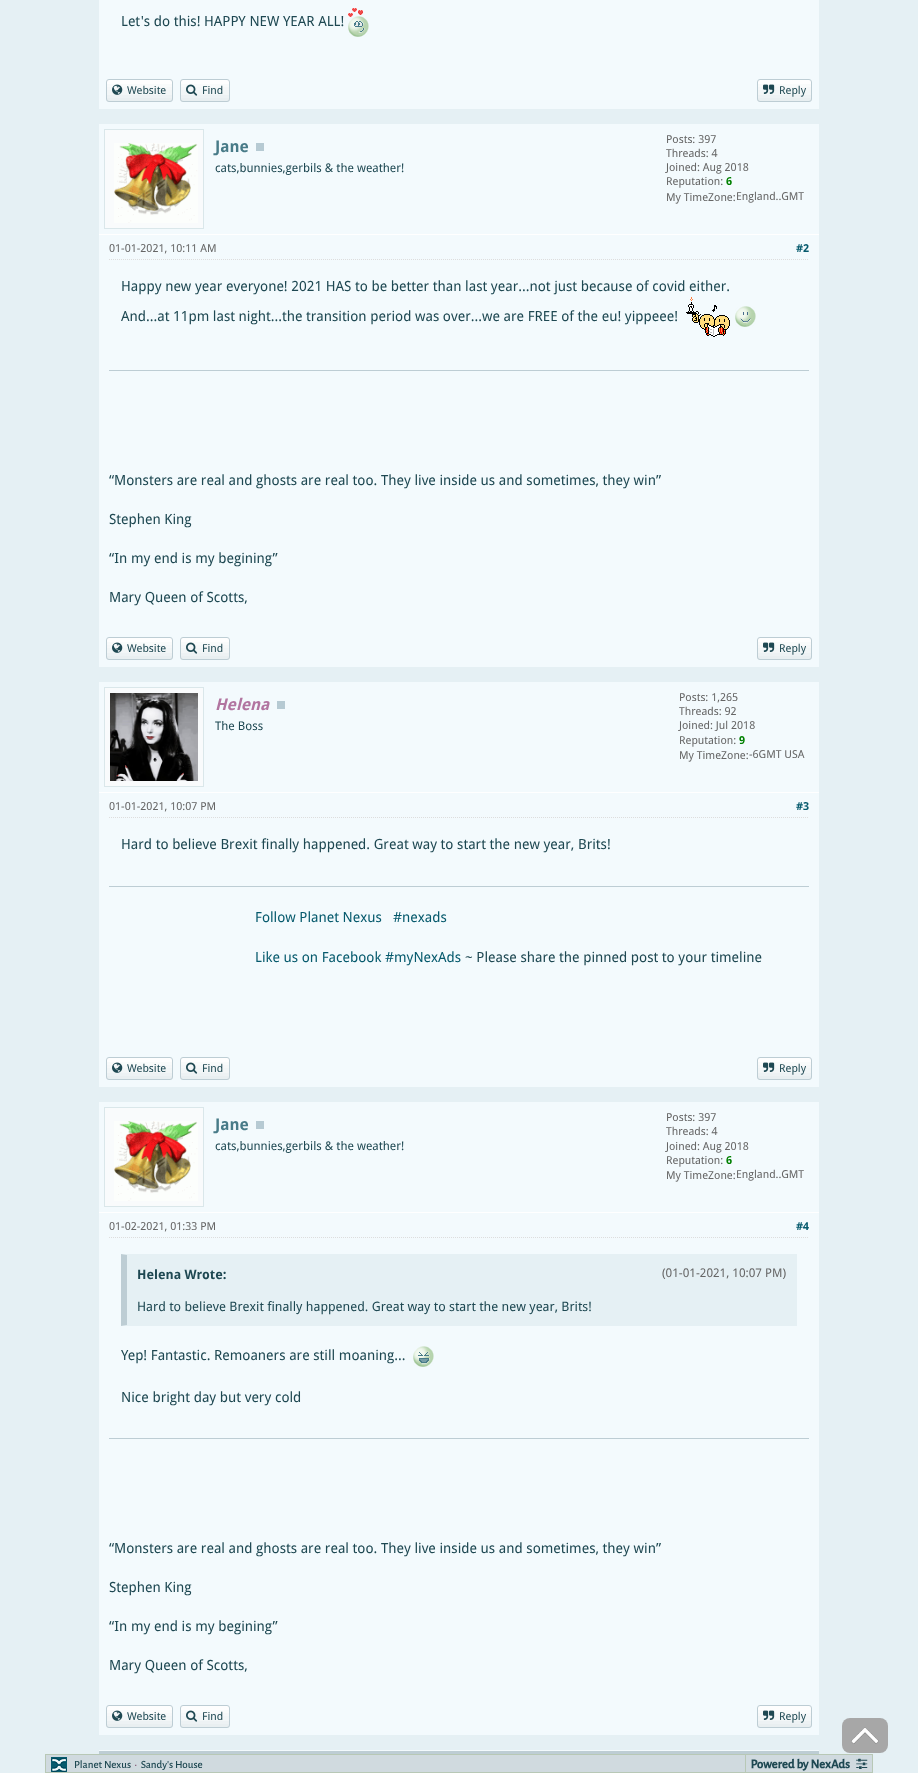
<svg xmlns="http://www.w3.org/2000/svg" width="918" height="1773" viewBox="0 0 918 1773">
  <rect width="100%" height="100%" fill="#e5f0f4"/>
  <rect x="99" y="0" width="720" height="1735" fill="#f3fafd"/>
  <text x="121" y="26" font-family="Droid Sans" font-size="14" fill="#1e4852">Let's do this! HAPPY NEW YEAR ALL!</text>
  <image x="348" y="8" width="21" height="29" href="img1.png"/>
  <rect x="99" y="109" width="720" height="15" fill="#e5f0f4"/>
  <image x="106" y="80" width="67" height="22" href="img2.png"/>
  <rect x="106.5" y="79.5" width="66" height="22" rx="2.5" fill="none" stroke="#bdcdd4"/>
  <image x="112" y="84" width="11" height="11" href="img3.png"/>
  <text x="127" y="94" font-family="Droid Sans" font-size="11" fill="#1e4852">Website</text>
  <image x="180" y="80" width="50" height="22" href="img4.png"/>
  <rect x="180.5" y="79.5" width="49" height="22" rx="2.5" fill="none" stroke="#bdcdd4"/>
  <image x="186" y="84" width="12" height="12" href="img5.png"/>
  <text x="202" y="94" font-family="Droid Sans" font-size="11" fill="#1e4852">Find</text>
  <image x="757" y="80" width="55" height="22" href="img6.png"/>
  <rect x="757.5" y="79.5" width="54" height="22" rx="2.5" fill="none" stroke="#bdcdd4"/>
  <image x="763" y="84" width="12" height="10" href="img7.png"/>
  <text x="779" y="94" font-family="Droid Sans" font-size="11" fill="#1e4852">Reply</text>
  <rect x="104.5" y="129.5" width="99" height="99" fill="#f9fbfc" stroke="#dae7ea"/>
  <image x="114" y="143" width="84" height="80" href="img8.png"/>
  <text x="215" y="152" font-family="Droid Sans" font-size="16" font-weight="bold" fill="#487b88">Jane</text>
  <rect x="256" y="143" width="8" height="8" fill="#b6cad3"/>
  <text x="215" y="172" font-family="Droid Sans" font-size="12" fill="#1e4852">cats,bunnies,gerbils &amp; the weather!</text>
  <text x="666" y="143" font-family="Droid Sans" font-size="11" fill="#666666">Posts: 397</text>
  <text x="666" y="157" font-family="Droid Sans" font-size="11" fill="#666666">Threads: 4</text>
  <text x="666" y="171" font-family="Droid Sans" font-size="11" fill="#666666">Joined: Aug 2018</text>
  <text x="666" y="185" font-family="Droid Sans" font-size="11" fill="#666666">Reputation:</text>
  <text x="726" y="185" font-family="Droid Sans" font-size="11" font-weight="bold" fill="#008000">6</text>
  <text x="666" y="201" font-family="Droid Sans" font-size="11" fill="#666666">My TimeZone:</text>
  <text x="736" y="200" font-family="Droid Sans" font-size="11" fill="#666666">England..GMT</text>
  <rect x="99" y="234" width="720" height="1" fill="#ffffff"/>
  <path d="M109 259.5H809" fill="none" stroke="#dddddd" stroke-dasharray="1 1"/>
  <text x="109" y="252" font-family="Droid Sans" font-size="11" fill="#666666">01-01-2021, 10:11 AM</text>
  <text x="796" y="252" font-family="Droid Sans" font-size="11" font-weight="bold" fill="#065a6d">#2</text>
  <text x="121" y="291" font-family="Droid Sans" font-size="14" fill="#1e4852">Happy new year everyone! 2021 HAS to be better than last year...not just because of covid either.</text>
  <text x="121" y="321" font-family="Droid Sans" font-size="14" fill="#1e4852">And...at 11pm last night...the transition period was over...we are FREE of the eu! yippeee!</text>
  <image x="686" y="297" width="44" height="40" href="img9.png"/>
  <image x="735" y="306" width="21" height="21" href="img10.png"/>
  <rect x="109" y="370" width="700" height="1" fill="#bdcdd4"/>
  <text x="109" y="485" font-family="Droid Sans" font-size="14" fill="#1e4852">“Monsters are real and ghosts are real too. They live inside us and sometimes, they win”</text>
  <text x="109" y="524" font-family="Droid Sans" font-size="14" fill="#1e4852">Stephen King</text>
  <text x="109" y="563" font-family="Droid Sans" font-size="14" fill="#1e4852">“In my end is my begining”</text>
  <text x="109" y="602" font-family="Droid Sans" font-size="14" fill="#1e4852">Mary Queen of Scotts,</text>
  <rect x="99" y="667" width="720" height="15" fill="#e5f0f4"/>
  <image x="106" y="638" width="67" height="22" href="img2.png"/>
  <rect x="106.5" y="637.5" width="66" height="22" rx="2.5" fill="none" stroke="#bdcdd4"/>
  <image x="112" y="642" width="11" height="11" href="img3.png"/>
  <text x="127" y="652" font-family="Droid Sans" font-size="11" fill="#1e4852">Website</text>
  <image x="180" y="638" width="50" height="22" href="img4.png"/>
  <rect x="180.5" y="637.5" width="49" height="22" rx="2.5" fill="none" stroke="#bdcdd4"/>
  <image x="186" y="642" width="12" height="12" href="img5.png"/>
  <text x="202" y="652" font-family="Droid Sans" font-size="11" fill="#1e4852">Find</text>
  <image x="757" y="638" width="55" height="22" href="img6.png"/>
  <rect x="757.5" y="637.5" width="54" height="22" rx="2.5" fill="none" stroke="#bdcdd4"/>
  <image x="763" y="642" width="12" height="10" href="img7.png"/>
  <text x="779" y="652" font-family="Droid Sans" font-size="11" fill="#1e4852">Reply</text>
  <rect x="104.5" y="687.5" width="99" height="99" fill="#f9fbfc" stroke="#dae7ea"/>
  <image x="110" y="693" width="88" height="88" href="img11.png"/>
  <text x="215" y="710" font-family="Droid Sans" font-size="16" font-weight="bold" font-style="italic" fill="#b174a0">Helena</text>
  <rect x="277" y="701" width="8" height="8" fill="#b6cad3"/>
  <text x="215" y="730" font-family="Droid Sans" font-size="12" fill="#1e4852">The Boss</text>
  <text x="679" y="701" font-family="Droid Sans" font-size="11" fill="#666666">Posts: 1,265</text>
  <text x="679" y="715" font-family="Droid Sans" font-size="11" fill="#666666">Threads: 92</text>
  <text x="679" y="729" font-family="Droid Sans" font-size="11" fill="#666666">Joined: Jul 2018</text>
  <text x="679" y="744" font-family="Droid Sans" font-size="11" fill="#666666">Reputation:</text>
  <text x="739" y="744" font-family="Droid Sans" font-size="11" font-weight="bold" fill="#008000">9</text>
  <text x="679" y="759" font-family="Droid Sans" font-size="11" fill="#666666">My TimeZone:</text>
  <text x="749" y="758" font-family="Droid Sans" font-size="11" fill="#666666">-6GMT USA</text>
  <rect x="99" y="792" width="720" height="1" fill="#ffffff"/>
  <path d="M109 817.5H809" fill="none" stroke="#dddddd" stroke-dasharray="1 1"/>
  <text x="109" y="810" font-family="Droid Sans" font-size="11" fill="#666666">01-01-2021, 10:07 PM</text>
  <text x="796" y="810" font-family="Droid Sans" font-size="11" font-weight="bold" fill="#065a6d">#3</text>
  <text x="121" y="849" font-family="Droid Sans" font-size="14" fill="#1e4852">Hard to believe Brexit finally happened. Great way to start the new year, Brits!</text>
  <rect x="109" y="886" width="700" height="1" fill="#bdcdd4"/>
  <text x="255" y="922" font-family="Droid Sans" font-size="14" fill="#065a6d">Follow Planet Nexus</text>
  <text x="393" y="922" font-family="Droid Sans" font-size="14" fill="#065a6d">#nexads</text>
  <text x="255" y="962" font-family="Droid Sans" font-size="14" fill="#065a6d">Like us on Facebook #myNexAds</text>
  <text x="465" y="962" font-family="Droid Sans" font-size="14" fill="#1e4852">~ Please share the pinned post to your timeline</text>
  <rect x="99" y="1087" width="720" height="15" fill="#e5f0f4"/>
  <image x="106" y="1058" width="67" height="22" href="img2.png"/>
  <rect x="106.5" y="1057.5" width="66" height="22" rx="2.5" fill="none" stroke="#bdcdd4"/>
  <image x="112" y="1062" width="11" height="11" href="img3.png"/>
  <text x="127" y="1072" font-family="Droid Sans" font-size="11" fill="#1e4852">Website</text>
  <image x="180" y="1058" width="50" height="22" href="img4.png"/>
  <rect x="180.5" y="1057.5" width="49" height="22" rx="2.5" fill="none" stroke="#bdcdd4"/>
  <image x="186" y="1062" width="12" height="12" href="img5.png"/>
  <text x="202" y="1072" font-family="Droid Sans" font-size="11" fill="#1e4852">Find</text>
  <image x="757" y="1058" width="55" height="22" href="img6.png"/>
  <rect x="757.5" y="1057.5" width="54" height="22" rx="2.5" fill="none" stroke="#bdcdd4"/>
  <image x="763" y="1062" width="12" height="10" href="img7.png"/>
  <text x="779" y="1072" font-family="Droid Sans" font-size="11" fill="#1e4852">Reply</text>
  <rect x="104.5" y="1107.5" width="99" height="99" fill="#f9fbfc" stroke="#dae7ea"/>
  <image x="114" y="1121" width="84" height="80" href="img8.png"/>
  <text x="215" y="1130" font-family="Droid Sans" font-size="16" font-weight="bold" fill="#487b88">Jane</text>
  <rect x="256" y="1121" width="8" height="8" fill="#b6cad3"/>
  <text x="215" y="1150" font-family="Droid Sans" font-size="12" fill="#1e4852">cats,bunnies,gerbils &amp; the weather!</text>
  <text x="666" y="1121" font-family="Droid Sans" font-size="11" fill="#666666">Posts: 397</text>
  <text x="666" y="1135" font-family="Droid Sans" font-size="11" fill="#666666">Threads: 4</text>
  <text x="666" y="1150" font-family="Droid Sans" font-size="11" fill="#666666">Joined: Aug 2018</text>
  <text x="666" y="1164" font-family="Droid Sans" font-size="11" fill="#666666">Reputation:</text>
  <text x="726" y="1164" font-family="Droid Sans" font-size="11" font-weight="bold" fill="#008000">6</text>
  <text x="666" y="1179" font-family="Droid Sans" font-size="11" fill="#666666">My TimeZone:</text>
  <text x="736" y="1178" font-family="Droid Sans" font-size="11" fill="#666666">England..GMT</text>
  <rect x="99" y="1212" width="720" height="1" fill="#ffffff"/>
  <path d="M109 1237.5H809" fill="none" stroke="#dddddd" stroke-dasharray="1 1"/>
  <text x="109" y="1230" font-family="Droid Sans" font-size="11" fill="#666666">01-02-2021, 01:33 PM</text>
  <text x="796" y="1230" font-family="Droid Sans" font-size="11" font-weight="bold" fill="#065a6d">#4</text>
  <rect x="127" y="1255" width="669" height="70" fill="#e5f0f4"/>
  <path d="M121 1254H797L796 1255H127Z" fill="#e5f0f4"/>
  <rect x="796" y="1254" width="1" height="72" fill="#e5f0f4"/>
  <path d="M797 1326H121L127 1325H796Z" fill="#e5f0f4"/>
  <path d="M121 1326V1254L127 1255V1325Z" fill="#bdcdd4"/>
  <text x="137" y="1279" font-family="Droid Sans" font-size="13" font-weight="bold" fill="#1e4852">Helena Wrote:</text>
  <text x="662" y="1277" font-family="Droid Sans" font-size="12" fill="#666666">(01-01-2021, 10:07 PM)</text>
  <text x="137" y="1311" font-family="Droid Sans" font-size="13" fill="#1e4852">Hard to believe Brexit finally happened. Great way to start the new year, Brits!</text>
  <text x="121" y="1360" font-family="Droid Sans" font-size="14" fill="#1e4852">Yep! Fantastic. Remoaners are still moaning...</text>
  <image x="413" y="1346" width="21" height="21" href="img12.png"/>
  <text x="121" y="1402" font-family="Droid Sans" font-size="14" fill="#1e4852">Nice bright day but very cold</text>
  <rect x="109" y="1438" width="700" height="1" fill="#bdcdd4"/>
  <text x="109" y="1553" font-family="Droid Sans" font-size="14" fill="#1e4852">“Monsters are real and ghosts are real too. They live inside us and sometimes, they win”</text>
  <text x="109" y="1592" font-family="Droid Sans" font-size="14" fill="#1e4852">Stephen King</text>
  <text x="109" y="1631" font-family="Droid Sans" font-size="14" fill="#1e4852">“In my end is my begining”</text>
  <text x="109" y="1670" font-family="Droid Sans" font-size="14" fill="#1e4852">Mary Queen of Scotts,</text>
  <image x="106" y="1706" width="67" height="22" href="img2.png"/>
  <rect x="106.5" y="1705.5" width="66" height="22" rx="2.5" fill="none" stroke="#bdcdd4"/>
  <image x="112" y="1710" width="11" height="11" href="img3.png"/>
  <text x="127" y="1720" font-family="Droid Sans" font-size="11" fill="#1e4852">Website</text>
  <image x="180" y="1706" width="50" height="22" href="img4.png"/>
  <rect x="180.5" y="1705.5" width="49" height="22" rx="2.5" fill="none" stroke="#bdcdd4"/>
  <image x="186" y="1710" width="12" height="12" href="img5.png"/>
  <text x="202" y="1720" font-family="Droid Sans" font-size="11" fill="#1e4852">Find</text>
  <image x="757" y="1706" width="55" height="22" href="img6.png"/>
  <rect x="757.5" y="1705.5" width="54" height="22" rx="2.5" fill="none" stroke="#bdcdd4"/>
  <image x="763" y="1710" width="12" height="10" href="img7.png"/>
  <text x="779" y="1720" font-family="Droid Sans" font-size="11" fill="#1e4852">Reply</text>
  <rect x="99" y="1751" width="720" height="3" fill="#bdcdd4"/>
  <rect x="99" y="1750" width="720" height="1" fill="#f3fafd"/>
  <rect x="842" y="1718" width="46" height="35" rx="8" fill="#a7a7a7"/>
  <image x="851" y="1727" width="28" height="17" href="img13.png"/>
  <image x="45" y="1754" width="828" height="19" href="img14.png"/>
</svg>
